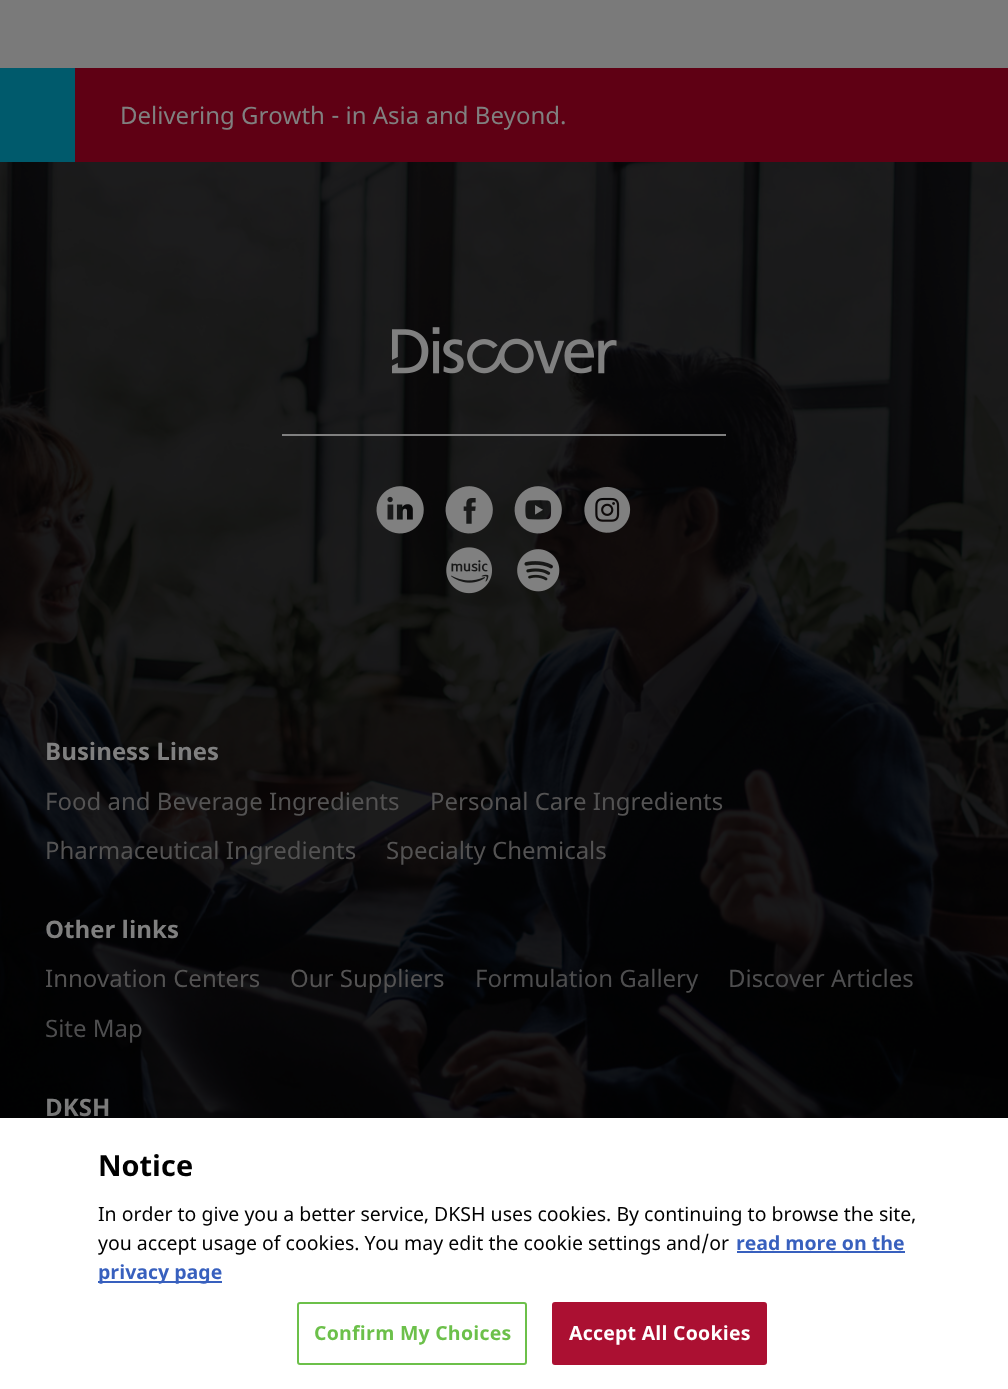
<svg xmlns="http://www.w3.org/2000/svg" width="1008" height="1389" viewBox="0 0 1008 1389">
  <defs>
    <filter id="blur1" x="-50%" y="-200%" width="200%" height="500%"><feGaussianBlur stdDeviation="13.5"/></filter>
    <clipPath id="clip1"><rect x="98" y="1148" width="835" height="139"/></clipPath>
  </defs>
  <rect width="100%" height="100%" fill="#7a7a7a"/>
  <rect x="75" y="68" width="933" height="94" fill="#5f0014"/>
  <rect x="0" y="68" width="75" height="94" fill="#005a6c"/>
  <text x="120" y="124" font-family="Noto Sans" font-size="24" fill="#808080">Delivering Growth - in Asia and Beyond.</text>
  <image x="0" y="162" width="1008" height="956" href="img1.png"/>
  <rect x="282" y="434" width="444" height="2" fill="#808080"/>
  <image x="392" y="327" width="225" height="47" href="img2.png"/>
  <image x="376" y="486" width="48" height="48" href="img3.png"/>
  <image x="445" y="486" width="48" height="48" href="img4.png"/>
  <image x="514" y="486" width="48" height="48" href="img5.png"/>
  <image x="584" y="486" width="47" height="47" href="img6.png"/>
  <image x="446" y="547" width="47" height="47" href="img7.png"/>
  <image x="517" y="549" width="43" height="43" href="img8.png"/>
  <text x="45" y="760" font-family="Noto Sans" font-size="24" font-weight="bold" fill="#808080">Business Lines</text>
  <text x="45" y="810" font-family="Noto Sans" font-size="24" fill="#545353">Food and Beverage Ingredients</text>
  <text x="430" y="810" font-family="Noto Sans" font-size="24" fill="#545353">Personal Care Ingredients</text>
  <text x="45" y="859" font-family="Noto Sans" font-size="24" fill="#545353">Pharmaceutical Ingredients</text>
  <text x="386" y="859" font-family="Noto Sans" font-size="24" fill="#545353">Specialty Chemicals</text>
  <text x="45" y="938" font-family="Noto Sans" font-size="24" font-weight="bold" fill="#808080">Other links</text>
  <text x="45" y="987" font-family="Noto Sans" font-size="24" fill="#545353">Innovation Centers</text>
  <text x="290" y="987" font-family="Noto Sans" font-size="24" fill="#545353">Our Suppliers</text>
  <text x="475" y="987" font-family="Noto Sans" font-size="24" fill="#4e4e4f">Formulation Gallery</text>
  <text x="728" y="987" font-family="Noto Sans" font-size="24" fill="#4e4e4f">Discover Articles</text>
  <text x="45" y="1037" font-family="Noto Sans" font-size="24" fill="#4e4e4f">Site Map</text>
  <text x="45" y="1116" font-family="Noto Sans" font-size="24" font-weight="bold" fill="#808080">DKSH</text>
  <rect x="0" y="1118" width="1008" height="271" fill="#000000" fill-opacity="0.2" filter="url(#blur1)"/>
  <rect x="0" y="1118" width="1008" height="271" fill="#ffffff"/>
  <text x="98" y="1176" font-family="Noto Sans" font-size="29" font-weight="bold" fill="#000000">Notice</text>
  <text x="98" y="1221" font-family="Noto Sans" font-size="19.5" fill="#000000">In order to give you a better service, DKSH uses cookies. By continuing to browse the site,</text>
  <g clip-path="url(#clip1)">
    <text x="98" y="1250" font-family="Noto Sans" font-size="19.5" fill="#000000">you accept usage of cookies. You may edit the cookie settings and/or</text>
  </g>
  <text x="736" y="1250" font-family="Noto Sans" font-size="19.5" font-weight="bold" fill="#3860be">read more on the</text>
  <rect x="737" y="1251" width="168" height="2" fill="#3860be"/>
  <rect x="98" y="1281" width="124" height="2" fill="#3860be"/>
  <text x="98" y="1279" font-family="Noto Sans" font-size="19.5" font-weight="bold" fill="#3860be">privacy page</text>
  <rect x="298" y="1303" width="228" height="61" rx="2" fill="none" stroke="#6cc04a" stroke-width="2"/>
  <text x="314" y="1340" font-family="Noto Sans" font-size="19.5" font-weight="bold" letter-spacing="0.25" fill="#6cc04a">Confirm My Choices</text>
  <rect x="553" y="1303" width="213" height="61" rx="2" fill="#ab1032" stroke="#ab1032" stroke-width="2"/>
  <text x="569" y="1340" font-family="Noto Sans" font-size="19.5" font-weight="bold" letter-spacing="0.25" fill="#ffffff">Accept All Cookies</text>
</svg>
